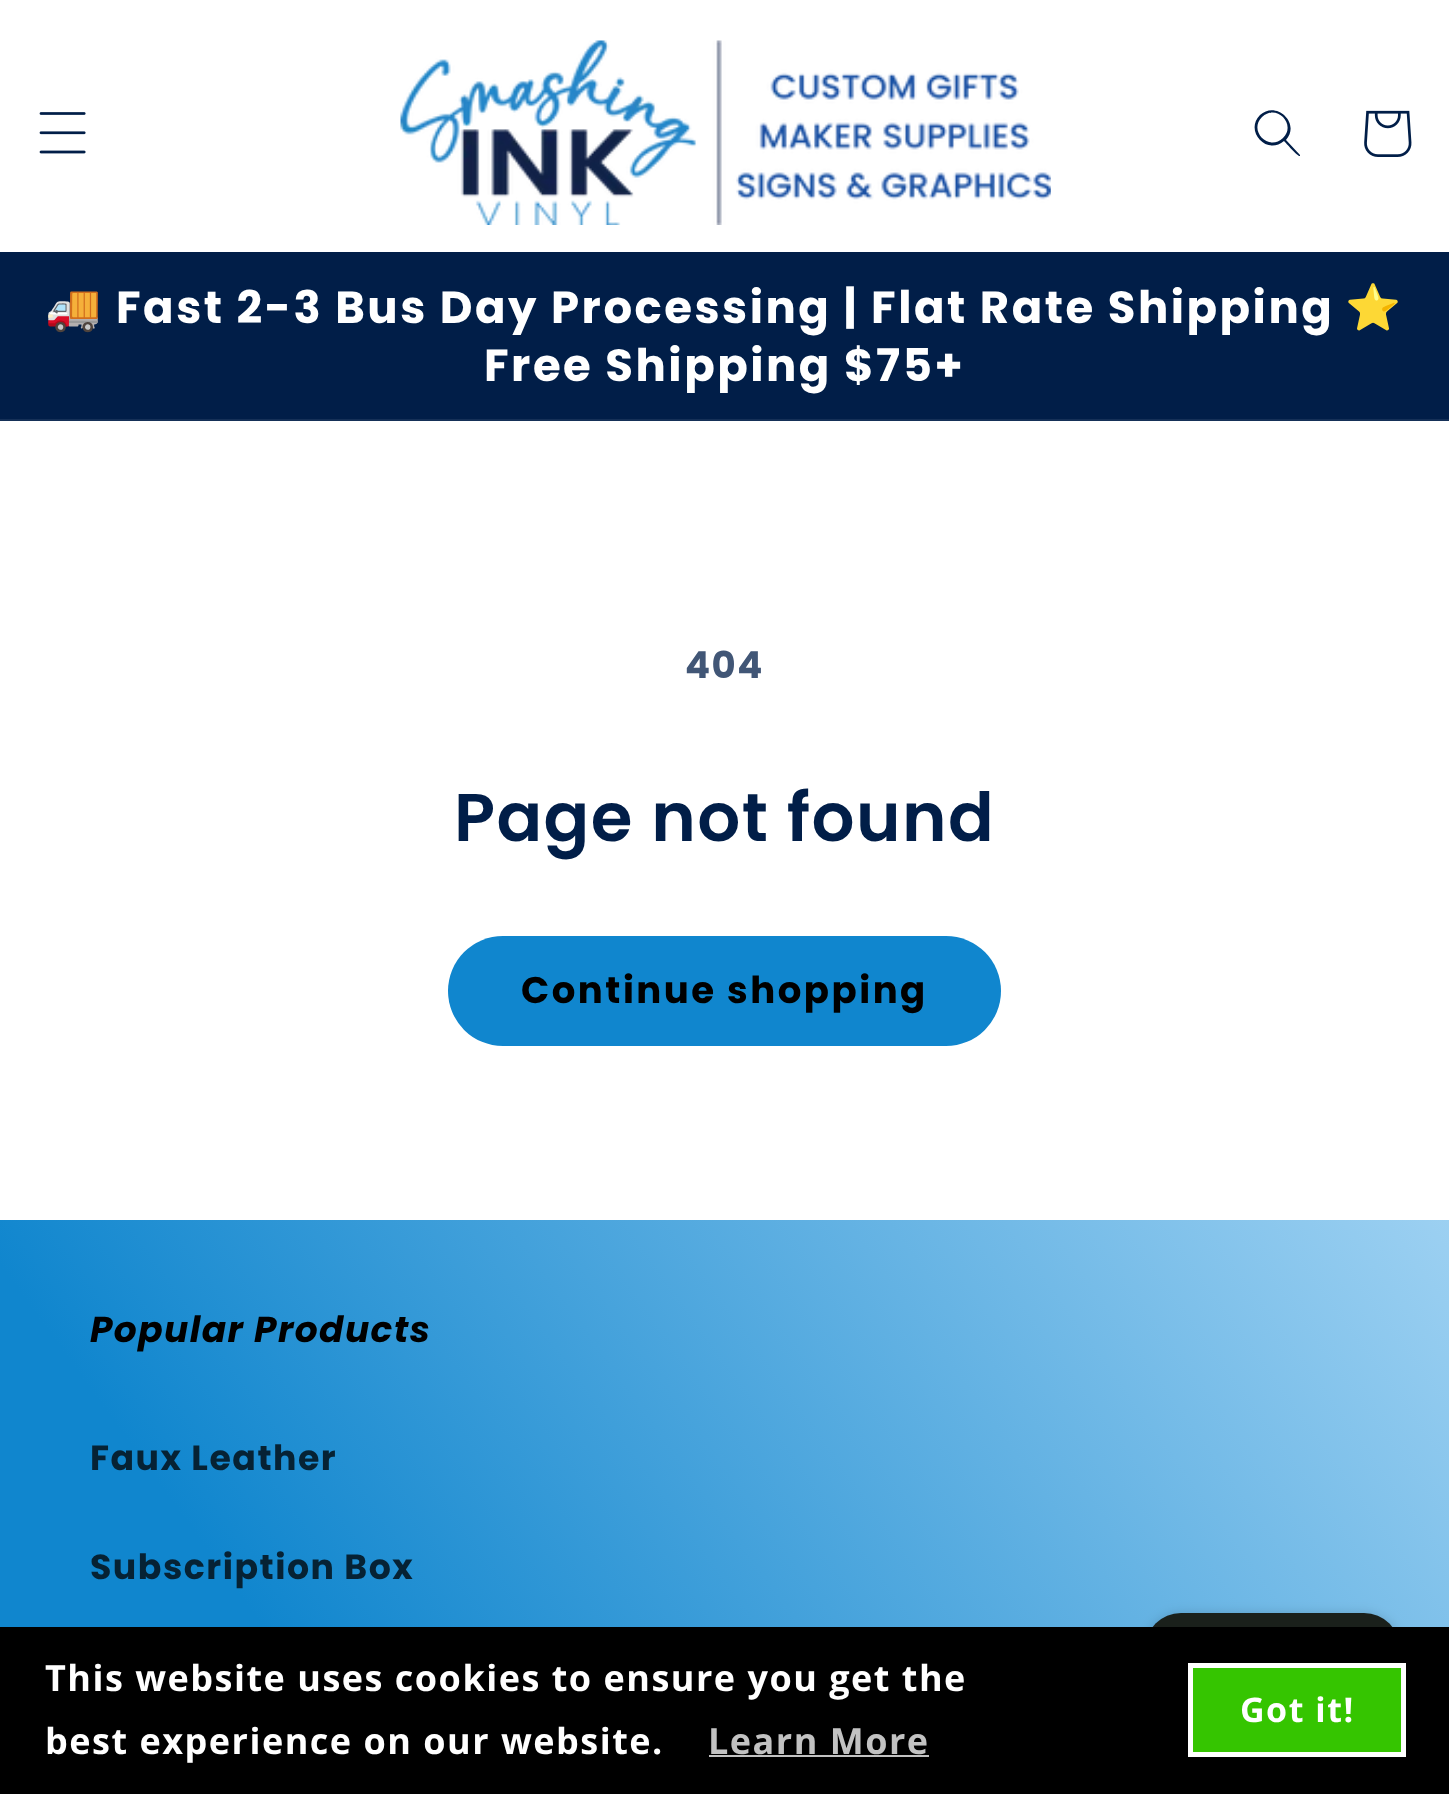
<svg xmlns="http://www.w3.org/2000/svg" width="1449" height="1794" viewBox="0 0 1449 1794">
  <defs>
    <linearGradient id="g1" gradientUnits="userSpaceOnUse" x1="-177" y1="1552" x2="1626" y2="243"><stop offset="0.14" stop-color="#1086ce"/><stop offset="0.85" stop-color="#c9e8fd"/></linearGradient>
    <filter id="blur1" x="-50%" y="-200%" width="200%" height="500%"><feGaussianBlur stdDeviation="5.5"/></filter>
  </defs>
  <rect width="100%" height="100%" fill="#ffffff"/>
  <image x="39" y="112" width="47" height="42" href="img1.png"/>
  <image x="400" y="40" width="651" height="185" href="img2.png"/>
  <path d="M1283 138C1269 152 1248 131 1262 117C1276 103 1297 124 1283 138ZM1284 141C1267 156 1244 131 1260 115C1276 100 1301 123 1286 140L1300 155V156C1298 157 1286 143 1284 141Z" fill="#011e48" fill-rule="evenodd"/>
  <image x="1364" y="110" width="48" height="47" href="img3.png"/>
  <rect x="0" y="252" width="1449" height="167" fill="#011e48"/>
  <rect x="0" y="419" width="1449" height="2" fill="#153057"/>
  <text x="45" y="323" font-family="Noto Color Emoji" font-size="45" font-weight="bold" letter-spacing="2.5" fill="#ffffff">🚚</text>
  <text x="116" y="323" font-family="Poppins" font-size="45" font-weight="bold" letter-spacing="2.5" fill="#ffffff">Fast 2-3 Bus Day Processing | Flat Rate Shipping</text>
  <text x="1345" y="323" font-family="Noto Color Emoji" font-size="45" font-weight="bold" letter-spacing="2.5" fill="#ffffff">⭐</text>
  <text x="484" y="381" font-family="Poppins" font-size="45" font-weight="bold" letter-spacing="2.5" fill="#ffffff">Free Shipping $75+</text>
  <text x="685" y="678" font-family="Poppins" font-size="37.1" font-weight="bold" letter-spacing="1.5" fill="#415676">404</text>
  <text x="454" y="841" font-family="Poppins" font-size="67.5" font-weight="600" letter-spacing="1.4" fill="#011e48">Page not found</text>
  <rect x="448" y="936" width="553" height="110" rx="55" fill="#1086ce"/>
  <text x="521" y="1003" font-family="Poppins" font-size="37.1" font-weight="bold" letter-spacing="2.5" fill="#000000">Continue shopping</text>
  <rect x="0" y="1220" width="1449" height="407" fill="url(#g1)"/>
  <text x="90" y="1342" font-family="Poppins" font-size="36" font-weight="bold" font-style="italic" letter-spacing="1.4" fill="#000000">Popular Products</text>
  <text x="90" y="1470" font-family="Poppins" font-size="34.75" font-weight="bold" letter-spacing="1.5" fill="#062234">Faux Leather</text>
  <text x="90" y="1579" font-family="Poppins" font-size="34.75" font-weight="bold" letter-spacing="1.5" fill="#062234">Subscription Box</text>
  <rect x="1145" y="1613" width="255" height="135" rx="36" fill="#000000" fill-opacity="0.15" filter="url(#blur1)"/>
  <rect x="1145" y="1613" width="255" height="135" rx="36" fill="#1a201b"/>
  <rect x="0" y="1627" width="1449" height="167" fill="#000000"/>
  <text x="45" y="1691" font-family="Open Sans" font-size="36" font-weight="bold" letter-spacing="1.5" fill="#ffffff">This website uses cookies to ensure you get the</text>
  <text x="45" y="1754" font-family="Open Sans" font-size="36" font-weight="bold" letter-spacing="1.5" fill="#ffffff">best experience on our website.</text>
  <text x="708" y="1754" font-family="Open Sans" font-size="36" font-weight="bold" letter-spacing="1.5" fill="#c2c2c2">Learn More</text>
  <rect x="709" y="1755" width="220" height="2" fill="#c2c2c2"/>
  <rect x="1190.5" y="1665.5" width="213" height="89" fill="#35c500" stroke="#ffffff" stroke-width="5"/>
  <text x="1240" y="1722" font-family="Open Sans" font-size="34" font-weight="bold" letter-spacing="1.5" fill="#ffffff">Got it!</text>
</svg>
